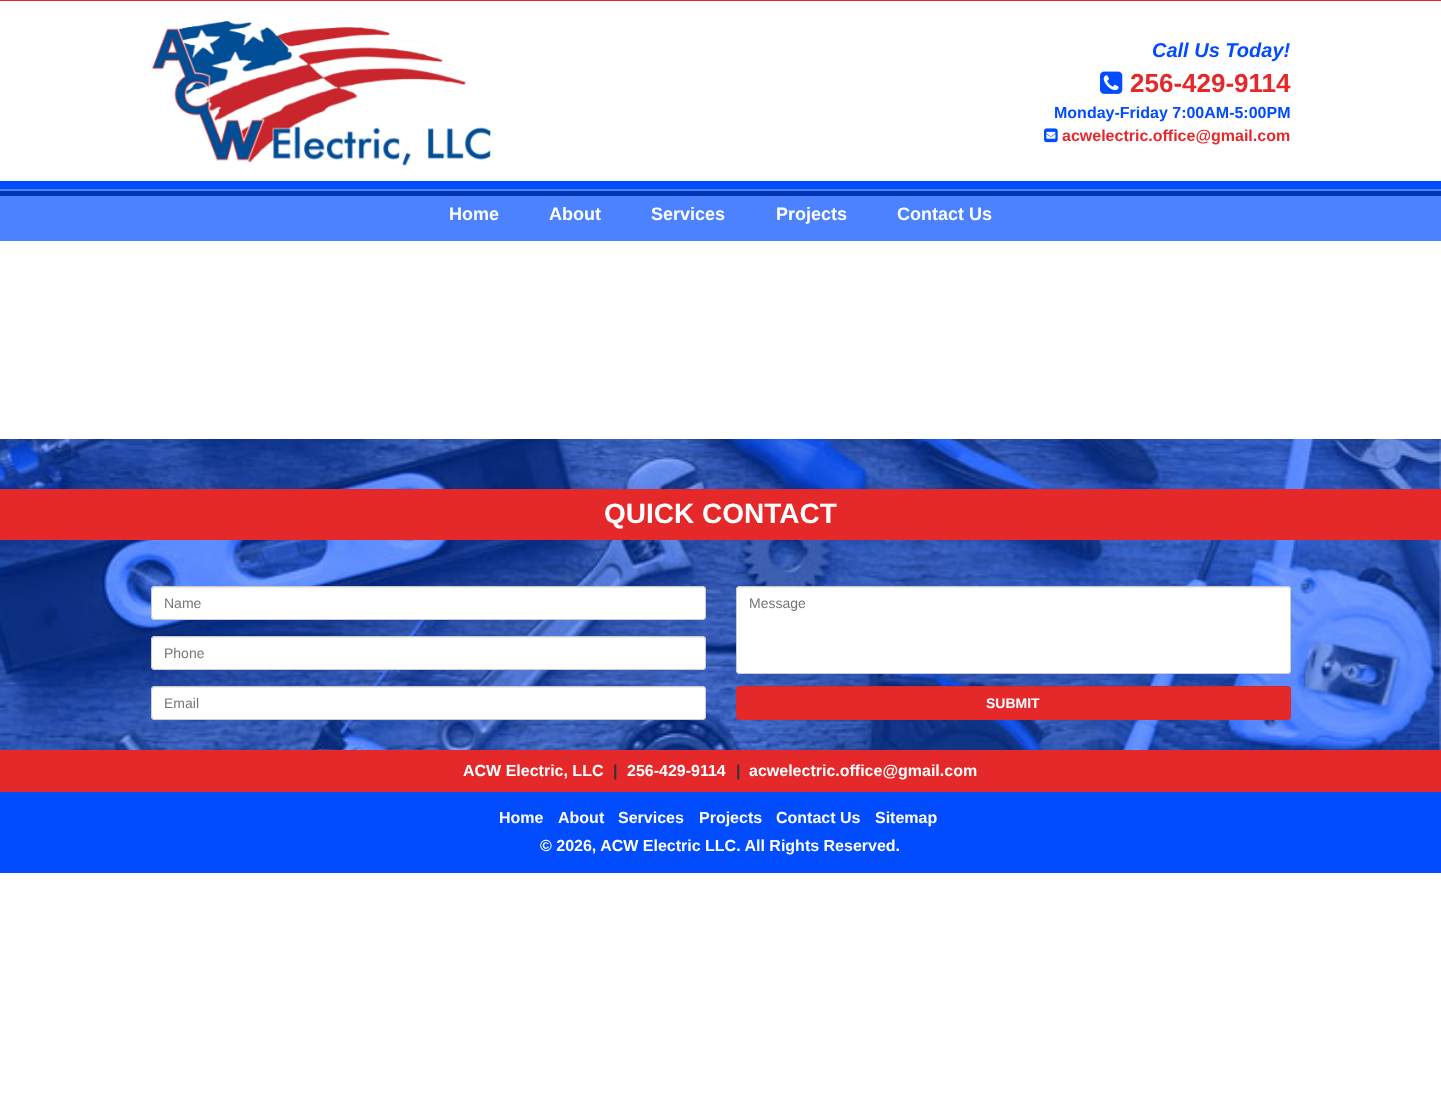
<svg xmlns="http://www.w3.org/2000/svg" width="1441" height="1116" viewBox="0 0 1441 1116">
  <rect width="100%" height="100%" fill="#ffffff"/>
  <rect x="0" y="189" width="1441" height="52" fill="#4d82fe"/>
  <rect x="0" y="0" width="1441" height="1" fill="#e5292a"/>
  <rect x="0" y="181" width="1441" height="8" fill="#014cfe"/>
  <image x="151" y="16" width="341" height="150" href="img1.png"/>
  <text x="1152" y="57" font-family="Liberation Sans" font-size="20" font-weight="bold" font-style="italic" fill="#014cfe">Call Us Today!</text>
  <image x="1100" y="71" width="23" height="23" href="img2.png"/>
  <text x="1130" y="92" font-family="Liberation Sans" font-size="26" font-weight="bold" fill="#e5292a">256-429-9114</text>
  <text x="1054" y="118" font-family="Liberation Sans" font-size="16" font-weight="bold" fill="#014cfe">Monday-Friday 7:00AM-5:00PM</text>
  <image x="1044" y="128" width="14" height="15" href="img3.png"/>
  <text x="1062" y="141" font-family="Liberation Sans" font-size="16" font-weight="bold" fill="#e5292a">acwelectric.office@gmail.com</text>
  <rect x="0" y="191" width="1441" height="5" fill="#0135b2"/>
  <text x="449" y="220" font-family="Liberation Sans" font-size="18" font-weight="bold" fill="#ffffff">Home</text>
  <text x="549" y="220" font-family="Liberation Sans" font-size="18" font-weight="bold" fill="#ffffff">About</text>
  <text x="651" y="220" font-family="Liberation Sans" font-size="18" font-weight="bold" fill="#ffffff">Services</text>
  <text x="776" y="220" font-family="Liberation Sans" font-size="18" font-weight="bold" fill="#ffffff">Projects</text>
  <text x="897" y="220" font-family="Liberation Sans" font-size="18" font-weight="bold" fill="#ffffff">Contact Us</text>
  <image x="0" y="439" width="1441" height="311" href="img4.png"/>
  <rect x="0" y="489" width="1441" height="51" fill="#e5292a"/>
  <text x="604" y="523" font-family="Liberation Sans" font-size="28" font-weight="bold" fill="#ffffff">QUICK CONTACT</text>
  <rect x="151" y="586" width="555" height="34" rx="4" fill="#ffffff"/>
  <path d="M155 588H702C704 588 705 589 705 591C705 589 704 587 702 587H155L153 588L152 589V591C152 589 153 588 155 588Z" fill="#ececec"/>
  <rect x="151.5" y="586.5" width="554" height="33" rx="3.5" fill="none" stroke="#cccccc"/>
  <text x="164" y="608" font-family="Liberation Sans" font-size="14" fill="#757575">Name</text>
  <rect x="151" y="636" width="555" height="34" rx="4" fill="#ffffff"/>
  <path d="M155 638H702C704 638 705 639 705 641C705 639 704 637 702 637H155L153 638L152 639V641C152 639 153 638 155 638Z" fill="#ececec"/>
  <rect x="151.5" y="636.5" width="554" height="33" rx="3.5" fill="none" stroke="#cccccc"/>
  <text x="164" y="658" font-family="Liberation Sans" font-size="14" fill="#757575">Phone</text>
  <rect x="151" y="686" width="555" height="34" rx="4" fill="#ffffff"/>
  <path d="M155 688H702C704 688 705 689 705 691C705 689 704 687 702 687H155L153 688L152 689V691C152 689 153 688 155 688Z" fill="#ececec"/>
  <rect x="151.5" y="686.5" width="554" height="33" rx="3.5" fill="none" stroke="#cccccc"/>
  <text x="164" y="708" font-family="Liberation Sans" font-size="14" fill="#757575">Email</text>
  <rect x="736" y="586" width="555" height="88" rx="4" fill="#ffffff"/>
  <path d="M740 588H1287C1289 588 1290 589 1290 591C1290 589 1289 587 1287 587H740L738 588L737 589V591C737 589 738 588 740 588Z" fill="#ececec"/>
  <rect x="736.5" y="586.5" width="554" height="87" rx="3.5" fill="none" stroke="#cccccc"/>
  <text x="749" y="608" font-family="Liberation Sans" font-size="14" fill="#757575">Message</text>
  <rect x="736" y="686" width="555" height="34" rx="4" fill="#e5292a"/>
  <path d="M740 687H1287C1289 687 1291 689 1291 691V690C1291 688 1289 686 1287 686H740C738 686 736 688 736 690V691C736 689 738 687 740 687Z" fill="#000000" fill-opacity="0.07"/>
  <text x="986" y="708" font-family="Liberation Sans" font-size="14" font-weight="bold" fill="#ffffff">SUBMIT</text>
  <rect x="0" y="750" width="1441" height="42" fill="#e5292a"/>
  <text x="463" y="776" font-family="Liberation Sans" font-size="16" font-weight="bold" fill="#ffffff">ACW Electric, LLC</text>
  <text x="613" y="776" font-family="Liberation Sans" font-size="16" font-weight="bold" fill="#333333">|</text>
  <text x="627" y="776" font-family="Liberation Sans" font-size="16" font-weight="bold" fill="#ffffff">256-429-9114</text>
  <text x="736" y="776" font-family="Liberation Sans" font-size="16" font-weight="bold" fill="#333333">|</text>
  <text x="749" y="776" font-family="Liberation Sans" font-size="16" font-weight="bold" fill="#ffffff">acwelectric.office@gmail.com</text>
  <rect x="0" y="792" width="1441" height="81" fill="#014cfe"/>
  <text x="499" y="823" font-family="Liberation Sans" font-size="16" font-weight="bold" fill="#ffffff">Home</text>
  <text x="558" y="823" font-family="Liberation Sans" font-size="16" font-weight="bold" fill="#ffffff">About</text>
  <text x="618" y="823" font-family="Liberation Sans" font-size="16" font-weight="bold" fill="#ffffff">Services</text>
  <text x="699" y="823" font-family="Liberation Sans" font-size="16" font-weight="bold" fill="#ffffff">Projects</text>
  <text x="776" y="823" font-family="Liberation Sans" font-size="16" font-weight="bold" fill="#ffffff">Contact Us</text>
  <text x="875" y="823" font-family="Liberation Sans" font-size="16" font-weight="bold" fill="#ffffff">Sitemap</text>
  <text x="540" y="851" font-family="Liberation Sans" font-size="16" font-weight="bold" fill="#ffffff">© 2026, ACW Electric LLC. All Rights Reserved.</text>
</svg>
